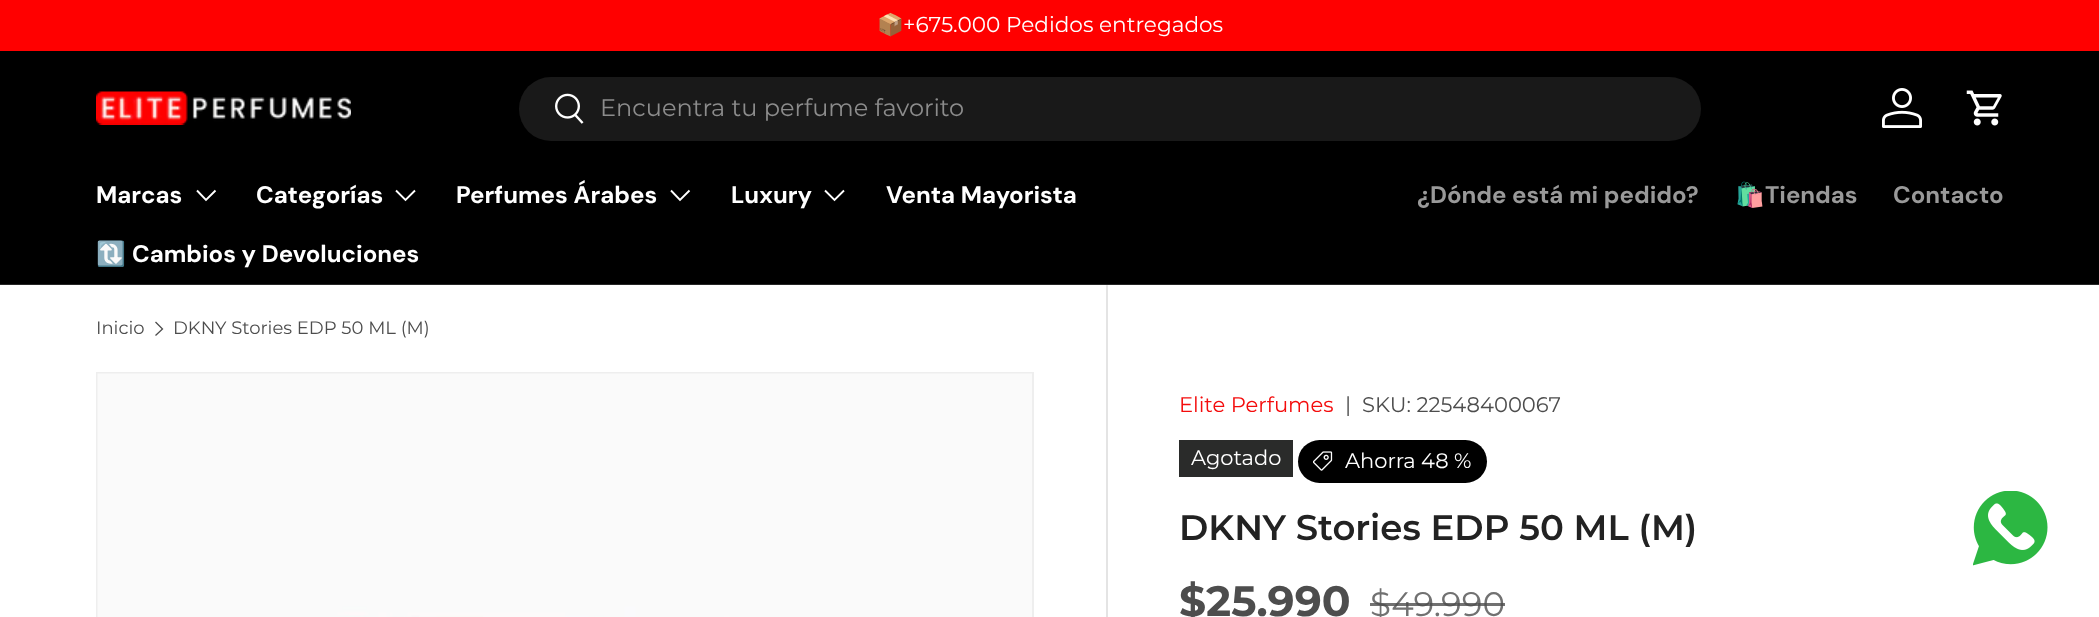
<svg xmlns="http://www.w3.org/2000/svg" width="2099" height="617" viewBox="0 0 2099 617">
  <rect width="100%" height="100%" fill="#ffffff"/>
  <rect x="0" y="0" width="2099" height="51" fill="#ff0000"/>
  <text x="877" y="32" font-family="Noto Color Emoji" font-size="21.6" fill="#ffffff">📦</text>
  <text x="903" y="32" font-family="Montserrat" font-size="21.6" font-weight="100" fill="#ffffff">+675.000 Pedidos entregados</text>
  <rect x="0" y="51" width="2099" height="233" fill="#000000"/>
  <rect x="0" y="284" width="2099" height="1" fill="#262626"/>
  <image x="96" y="91" width="255" height="34" href="img1.png"/>
  <rect x="519" y="77" width="1182" height="64" rx="32" fill="#191919"/>
  <image x="555" y="93" width="29" height="31" href="img2.png"/>
  <text x="600" y="116" font-family="Montserrat" font-size="24" font-weight="100" fill="#8c8c8c">Encuentra tu perfume favorito</text>
  <image x="1882" y="88" width="40" height="40" href="img3.png"/>
  <image x="1966" y="90" width="36" height="36" href="img4.png"/>
  <text x="96" y="203" font-family="DM Sans" font-size="24" font-weight="bold" fill="#ffffff">Marcas</text>
  <path d="M215.5 190.5L206 200L197 190.5" fill="none" stroke="#ffffff" stroke-width="1.9"/>
  <text x="256" y="203" font-family="DM Sans" font-size="24" font-weight="bold" fill="#ffffff">Categorías</text>
  <path d="M415 190.5L405.5 200L396 190.5" fill="none" stroke="#ffffff" stroke-width="1.9"/>
  <text x="456" y="203" font-family="DM Sans" font-size="24" font-weight="bold" fill="#ffffff">Perfumes Árabes</text>
  <path d="M689.5 190.5L680 200L671 190.5" fill="none" stroke="#ffffff" stroke-width="1.9"/>
  <text x="731" y="203" font-family="DM Sans" font-size="24" font-weight="bold" fill="#ffffff">Luxury</text>
  <path d="M844 190.5L834.5 200L825 190.5" fill="none" stroke="#ffffff" stroke-width="1.9"/>
  <text x="886" y="203" font-family="DM Sans" font-size="24" font-weight="bold" fill="#ffffff">Venta Mayorista</text>
  <text x="96" y="262" font-family="Noto Color Emoji" font-size="24" font-weight="bold" fill="#ffffff">🔃</text>
  <text x="132" y="262" font-family="DM Sans" font-size="24" font-weight="bold" fill="#ffffff">Cambios y Devoluciones</text>
  <text x="1417" y="203" font-family="DM Sans" font-size="24" font-weight="bold" fill="#999999">¿Dónde está mi pedido?</text>
  <text x="1735" y="203" font-family="Noto Color Emoji" font-size="24" font-weight="bold" fill="#999999">🛍️</text>
  <text x="1765" y="203" font-family="DM Sans" font-size="24" font-weight="bold" fill="#999999">Tiendas</text>
  <text x="1893" y="203" font-family="DM Sans" font-size="24" font-weight="bold" fill="#999999">Contacto</text>
  <text x="96" y="334" font-family="Montserrat" font-size="18" font-weight="100" fill="#4d4d4d">Inicio</text>
  <path d="M155.5 322L162.5 329L155.5 335.5" fill="none" stroke="#4d4d4d" stroke-width="1.3"/>
  <text x="173" y="334" font-family="Montserrat" font-size="18" font-weight="100" fill="#4d4d4d">DKNY Stories EDP 50 ML (M)</text>
  <rect x="97" y="373" width="936" height="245" fill="none" stroke="#eeeeee" stroke-width="2"/>
  <image x="97" y="373" width="935" height="244" href="img5.png"/>
  <rect x="1106" y="285" width="2" height="332" fill="#e4e4e4"/>
  <rect x="1106" y="285" width="2" height="1" fill="#e8e8e8"/>
  <text x="1179" y="412" font-family="Montserrat" font-size="21.1" font-weight="100" fill="#f40c0c">Elite Perfumes</text>
  <text x="1345" y="412" font-family="Montserrat" font-size="21.1" font-weight="100" fill="#4d4d4d">|</text>
  <text x="1362" y="412" font-family="Montserrat" font-size="21.1" font-weight="100" fill="#4d4d4d">SKU: 22548400067</text>
  <rect x="1179" y="440" width="114" height="37" fill="#2a2b2a"/>
  <text x="1191" y="465" font-family="Montserrat" font-size="21" font-weight="100" fill="#ffffff">Agotado</text>
  <rect x="1298" y="440" width="189" height="43" rx="21.5" fill="#000000"/>
  <image x="1313" y="451" width="20" height="20" href="img6.png"/>
  <text x="1345" y="468" font-family="Montserrat" font-size="21" font-weight="100" fill="#ffffff">Ahorra 48 %</text>
  <text x="1179" y="540" font-family="Montserrat" font-size="35.5" font-weight="600" fill="#222222">DKNY Stories EDP 50 ML (M)</text>
  <text x="1179" y="616" font-family="Montserrat" font-size="42.5" font-weight="bold" fill="#4d4d4d">$25.990</text>
  <text x="1370" y="616" font-family="Montserrat" font-size="34" font-weight="100" fill="#717171">$49.990</text>
  <rect x="1370" y="603" width="135" height="3" fill="#4d4d4d" fill-opacity="0.8"/>
  <image x="1973" y="491" width="75" height="75" href="img7.png"/>
</svg>
